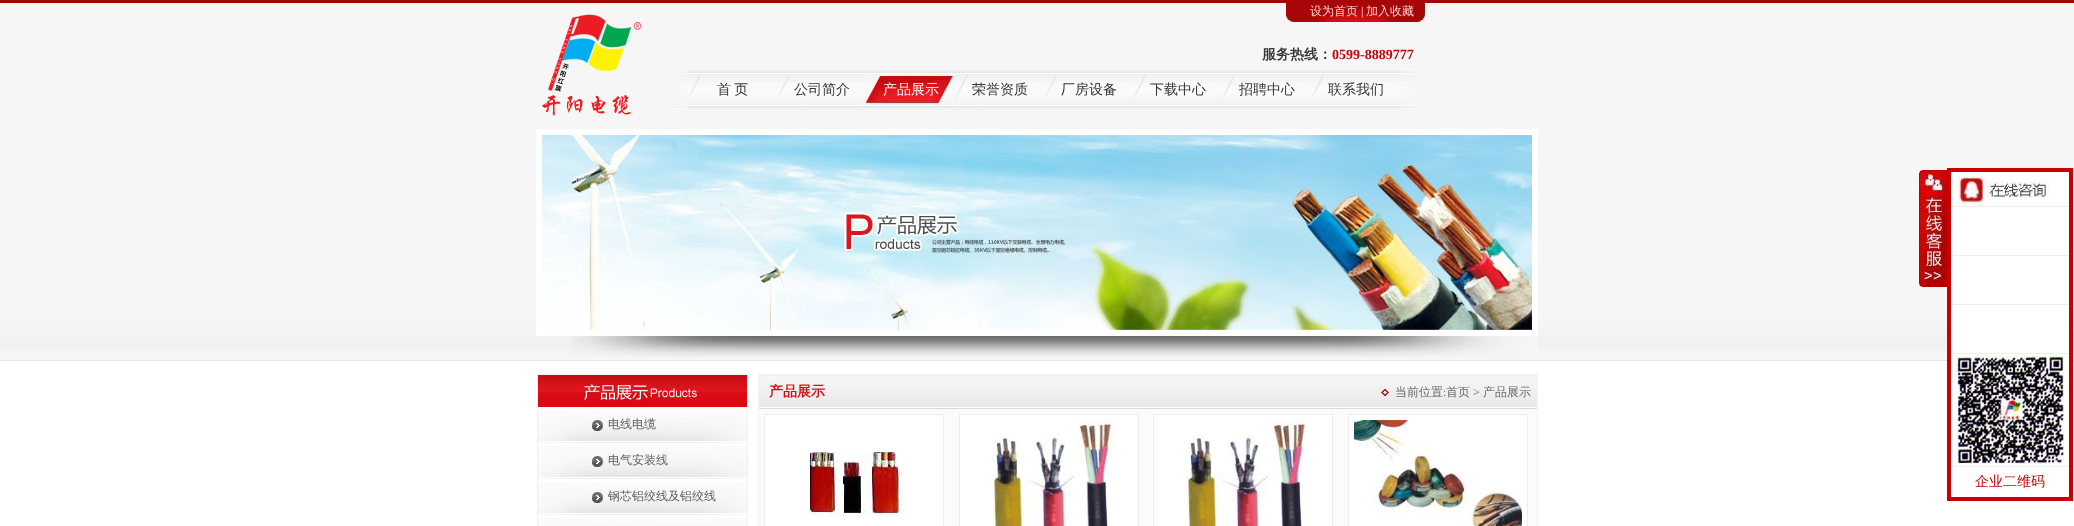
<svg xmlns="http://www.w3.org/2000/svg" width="2074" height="526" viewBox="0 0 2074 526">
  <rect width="100%" height="100%" fill="#ffffff"/>
  <rect x="0" y="3" width="2074" height="126" fill="#f6f6f6"/>
  <rect x="0" y="0" width="2074" height="3" fill="#a60608"/>
  <image x="536" y="11" width="110" height="112" href="img1.png"/>
  <image x="1286" y="3" width="140" height="19" href="img2.png"/>
  <text x="1310" y="15" font-family="WenQuanYi Zen Hei" font-size="12" font-weight="500" fill="#fdd1d2">设为首页</text>
  <text x="1361" y="15" font-family="Liberation Serif" font-size="12" fill="#fdecec">|</text>
  <text x="1366" y="15" font-family="WenQuanYi Zen Hei" font-size="12" font-weight="500" fill="#fdd1d2">加入收藏</text>
  <text x="1262" y="59" font-family="WenQuanYi Zen Hei" font-size="14" font-weight="bold" fill="#363636">服务热线：</text>
  <text x="1332" y="59" font-family="Liberation Serif" font-size="14" font-weight="bold" fill="#b50c0d">0599-8889777</text>
  <image x="673" y="72" width="15" height="35" href="img3.png"/>
  <image x="688" y="70" width="712" height="4" href="img4.png"/>
  <image x="1400" y="71" width="20" height="37" href="img5.png"/>
  <image x="688" y="74" width="89" height="31" href="img6.png"/>
  <text x="717" y="94" word-spacing="-1" font-family="WenQuanYi Zen Hei" font-size="14" font-weight="500" fill="#363636">首 页</text>
  <image x="777" y="74" width="89" height="31" href="img6.png"/>
  <text x="794" y="94" font-family="WenQuanYi Zen Hei" font-size="14" font-weight="500" fill="#363636">公司简介</text>
  <image x="866" y="74" width="87" height="31" href="img7.png"/>
  <text x="883" y="94" font-family="WenQuanYi Zen Hei" font-size="14" font-weight="500" fill="#ffffff">产品展示</text>
  <image x="955" y="74" width="89" height="31" href="img6.png"/>
  <text x="972" y="94" font-family="WenQuanYi Zen Hei" font-size="14" font-weight="500" fill="#363636">荣誉资质</text>
  <image x="1044" y="74" width="89" height="31" href="img6.png"/>
  <text x="1061" y="94" font-family="WenQuanYi Zen Hei" font-size="14" font-weight="500" fill="#363636">厂房设备</text>
  <image x="1133" y="74" width="89" height="31" href="img6.png"/>
  <text x="1150" y="94" font-family="WenQuanYi Zen Hei" font-size="14" font-weight="500" fill="#363636">下载中心</text>
  <image x="1222" y="74" width="89" height="31" href="img6.png"/>
  <text x="1239" y="94" font-family="WenQuanYi Zen Hei" font-size="14" font-weight="500" fill="#363636">招聘中心</text>
  <image x="1311" y="74" width="89" height="31" href="img6.png"/>
  <text x="1328" y="94" font-family="WenQuanYi Zen Hei" font-size="14" font-weight="500" fill="#363636">联系我们</text>
  <image x="688" y="105" width="712" height="4" href="img8.png"/>
  <image x="0" y="129" width="2074" height="232" href="img9.png"/>
  <image x="571" y="336" width="967" height="21" href="img10.png"/>
  <rect x="539" y="132" width="996" height="201" fill="none" stroke="#ffffff" stroke-width="6"/>
  <image x="542" y="135" width="990" height="195" href="img11.png"/>
  <rect x="759" y="409" width="778" height="117" fill="#fbfbfb"/>
  <rect x="758.5" y="374.5" width="779" height="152" fill="none" stroke="#f1f1f1"/>
  <image x="759" y="375" width="778" height="34" href="img12.png"/>
  <text x="769" y="396" font-family="WenQuanYi Zen Hei" font-size="14" font-weight="bold" fill="#d90d16">产品展示</text>
  <image x="1379" y="388" width="12" height="10" href="img13.png"/>
  <text x="1395" y="396" font-family="WenQuanYi Zen Hei" font-size="12" font-weight="500" fill="#686868">当前位置</text>
  <text x="1443" y="396" font-family="Liberation Serif" font-size="12" fill="#686868">:</text>
  <text x="1446" y="396" font-family="WenQuanYi Zen Hei" font-size="12" font-weight="500" fill="#686868">首页</text>
  <text x="1473" y="396" font-family="Liberation Serif" font-size="12" fill="#686868">&gt;</text>
  <text x="1483" y="396" font-family="WenQuanYi Zen Hei" font-size="12" font-weight="500" fill="#686868">产品展示</text>
  <rect x="764.5" y="414.5" width="179" height="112" fill="#ffffff" stroke="#edebec"/>
  <image x="802" y="451" width="103" height="65" href="img14.png"/>
  <rect x="959.5" y="414.5" width="179" height="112" fill="#ffffff" stroke="#edebec"/>
  <image x="992" y="420" width="121" height="106" href="img15.png"/>
  <rect x="1153.5" y="414.5" width="179" height="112" fill="#ffffff" stroke="#edebec"/>
  <image x="1186" y="420" width="121" height="106" href="img16.png"/>
  <rect x="1348.5" y="414.5" width="179" height="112" fill="#ffffff" stroke="#edebec"/>
  <image x="1354" y="420" width="168" height="106" href="img17.png"/>
  <rect x="537.5" y="374.5" width="210" height="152" fill="none" stroke="#f1f1f1"/>
  <image x="538" y="375" width="209" height="32" href="img18.png"/>
  <image x="538" y="410" width="209" height="31" href="img19.png"/>
  <text x="608" y="428" font-family="WenQuanYi Zen Hei" font-size="12" font-weight="500" fill="#5d5d5d">电线电缆</text>
  <image x="538" y="442" width="209" height="1" href="img20.png"/>
  <image x="538" y="446" width="209" height="31" href="img19.png"/>
  <text x="608" y="464" font-family="WenQuanYi Zen Hei" font-size="12" font-weight="500" fill="#5d5d5d">电气安装线</text>
  <image x="538" y="478" width="209" height="1" href="img20.png"/>
  <image x="538" y="482" width="209" height="31" href="img19.png"/>
  <text x="608" y="500" font-family="WenQuanYi Zen Hei" font-size="12" font-weight="500" fill="#5d5d5d">钢芯铝绞线及铝绞线</text>
  <image x="538" y="514" width="209" height="1" href="img20.png"/>
  <image x="538" y="518" width="209" height="8" href="img21.png"/>
  <image x="1919" y="170" width="28" height="117" href="img22.png"/>
  <rect x="1951" y="172" width="118" height="189" fill="#ffffff"/>
  <rect x="1949" y="170" width="122" height="329" fill="none" stroke="#c80002" stroke-width="4"/>
  <rect x="1951" y="206" width="118" height="1" fill="#eeeeee"/>
  <image x="1951" y="172" width="98" height="34" href="img23.png"/>
  <rect x="1951" y="255" width="118" height="1" fill="#eeeeee"/>
  <rect x="1951" y="304" width="118" height="1" fill="#eeeeee"/>
  <rect x="1951" y="353" width="118" height="1" fill="#eeeeee"/>
  <rect x="1951" y="466" width="118" height="1" fill="#eeeeee"/>
  <image x="1957" y="356" width="107" height="108" href="img24.png"/>
  <text x="1975" y="486" font-family="WenQuanYi Zen Hei" font-size="14" font-weight="500" fill="#c80002">企业二维码</text>
</svg>
